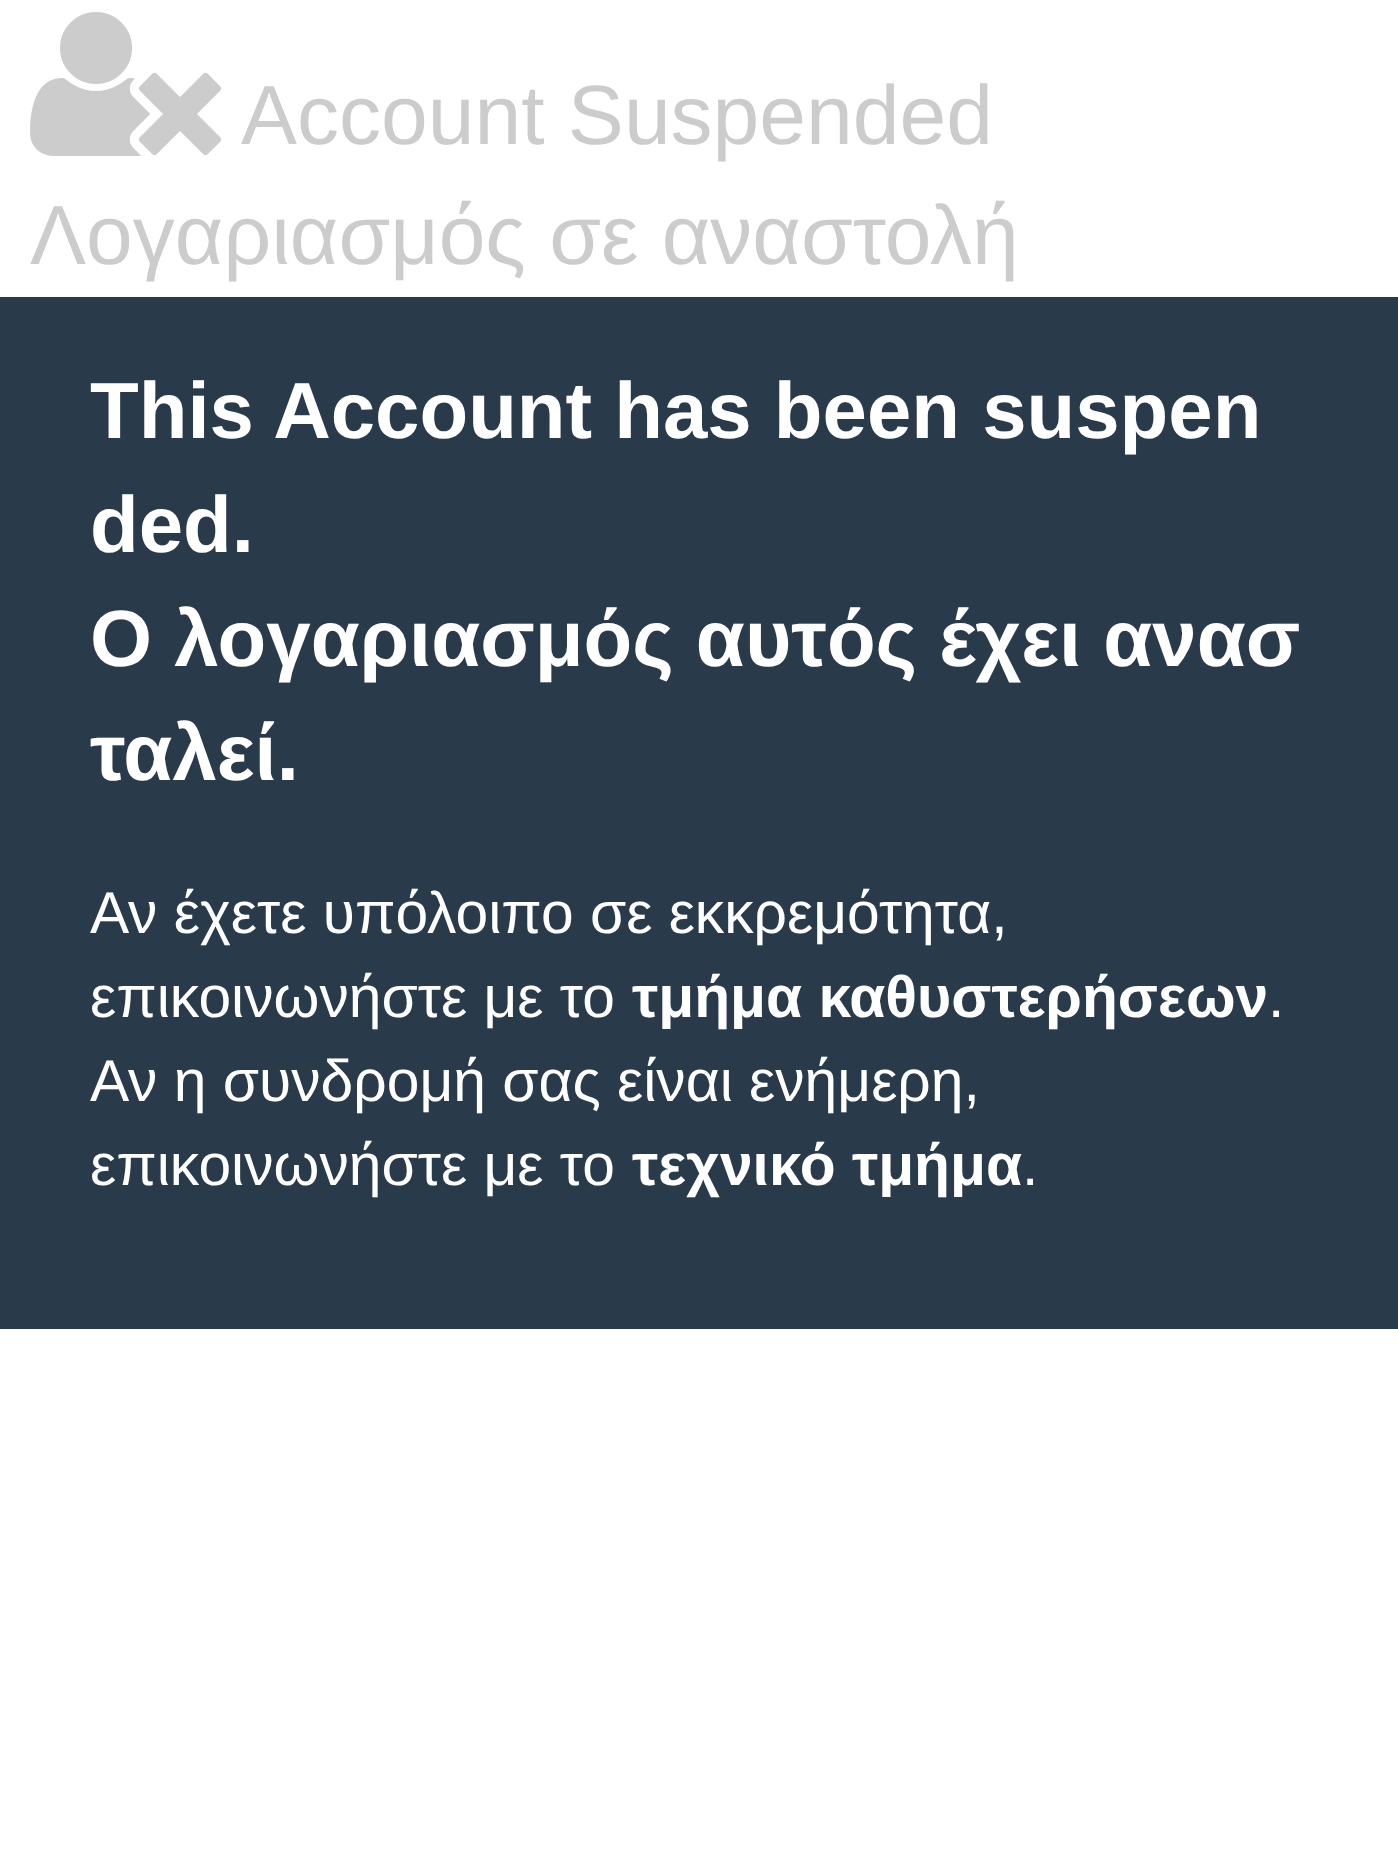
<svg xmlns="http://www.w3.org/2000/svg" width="1398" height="1865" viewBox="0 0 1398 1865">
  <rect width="100%" height="100%" fill="#ffffff"/>
  <image x="30" y="12" width="192" height="144" href="img1.png"/>
  <text x="241" y="144" font-family="Liberation Sans" font-size="84" fill="#cccccc">Account Suspended</text>
  <text x="30" y="264" font-family="Liberation Sans" font-size="84" fill="#cccccc">Λογαριασμός σε αναστολή</text>
  <rect x="0" y="297" width="1398" height="1032" fill="#293a4a"/>
  <text x="90" y="438" font-family="Liberation Sans" font-size="79.75" font-weight="bold" fill="#ffffff">This Account has been suspen</text>
  <text x="90" y="552" font-family="Liberation Sans" font-size="79.75" font-weight="bold" fill="#ffffff">ded.</text>
  <text x="90" y="666" font-family="Liberation Sans" font-size="79.75" font-weight="bold" fill="#ffffff">Ο λογαριασμός αυτός έχει ανασ</text>
  <text x="90" y="780" font-family="Liberation Sans" font-size="79.75" font-weight="bold" fill="#ffffff">ταλεί.</text>
  <text x="90" y="933" font-family="Liberation Sans" font-size="58.75" fill="#ffffff">Αν έχετε υπόλοιπο σε εκκρεμότητα,</text>
  <text x="90" y="1017" font-family="Liberation Sans" font-size="58.75" fill="#ffffff">επικοινωνήστε με το</text>
  <text x="632" y="1017" font-family="Liberation Sans" font-size="58.75" font-weight="bold" fill="#ffffff">τμήμα καθυστερήσεων</text>
  <text x="1268" y="1017" font-family="Liberation Sans" font-size="58.75" fill="#ffffff">.</text>
  <text x="90" y="1101" font-family="Liberation Sans" font-size="58.75" fill="#ffffff">Αν η συνδρομή σας είναι ενήμερη,</text>
  <text x="90" y="1185" font-family="Liberation Sans" font-size="58.75" fill="#ffffff">επικοινωνήστε με το</text>
  <text x="632" y="1185" font-family="Liberation Sans" font-size="58.75" font-weight="bold" fill="#ffffff">τεχνικό τμήμα</text>
  <text x="1022" y="1185" font-family="Liberation Sans" font-size="58.75" fill="#ffffff">.</text>
</svg>
